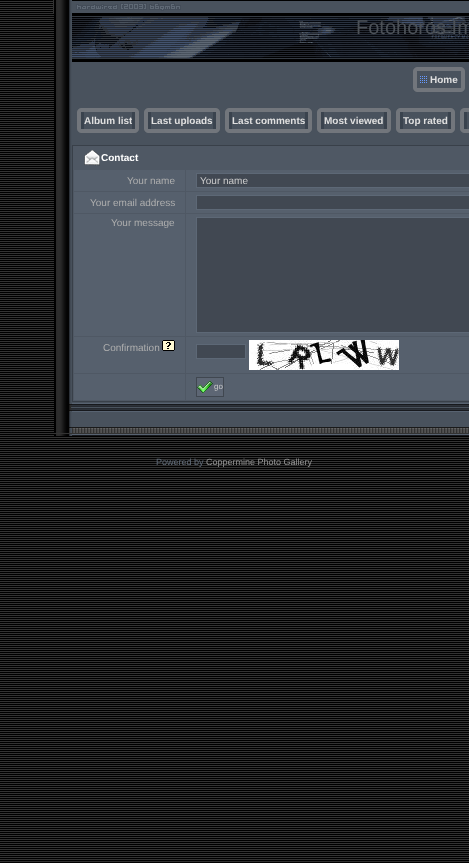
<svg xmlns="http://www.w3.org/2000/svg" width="469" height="863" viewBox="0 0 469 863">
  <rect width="100%" height="100%" fill="#000000"/>
  <image x="0" y="1" width="469" height="861" href="img1.png"/>
  <rect x="53" y="0" width="1" height="13" fill="#333333"/>
  <image x="54" y="0" width="18" height="62" href="img2.png"/>
  <image x="72" y="1" width="397" height="61" href="img3.png"/>
  <image x="72" y="3" width="397" height="55" href="img4.png"/>
  <text x="356" y="34" font-family="Liberation Sans" font-size="20" fill="#4c5157">Fotohoros Im</text>
  <image x="54" y="62" width="18" height="341" href="img5.png"/>
  <rect x="72" y="62" width="397" height="341" fill="#49525d"/>
  <image x="413" y="67" width="17" height="25" href="img6.png"/>
  <image x="430" y="67" width="28" height="25" href="img7.png"/>
  <text x="430" y="83" font-family="Liberation Sans" font-size="10" font-weight="bold" fill="#dfdfdf">Home</text>
  <image x="458" y="67" width="7" height="25" href="img8.png"/>
  <image x="77" y="108" width="7" height="25" href="img9.png"/>
  <image x="84" y="108" width="48" height="25" href="img10.png"/>
  <text x="84" y="124" font-family="Liberation Sans" font-size="10" font-weight="bold" fill="#dfdfdf">Album list</text>
  <image x="132" y="108" width="7" height="25" href="img11.png"/>
  <image x="144" y="108" width="7" height="25" href="img9.png"/>
  <image x="151" y="108" width="62" height="25" href="img12.png"/>
  <text x="151" y="124" font-family="Liberation Sans" font-size="10" font-weight="bold" fill="#dfdfdf">Last uploads</text>
  <image x="213" y="108" width="7" height="25" href="img11.png"/>
  <image x="225" y="108" width="7" height="25" href="img9.png"/>
  <image x="232" y="108" width="73" height="25" href="img13.png"/>
  <text x="232" y="124" font-family="Liberation Sans" font-size="10" font-weight="bold" fill="#dfdfdf">Last comments</text>
  <image x="305" y="108" width="7" height="25" href="img11.png"/>
  <image x="317" y="108" width="7" height="25" href="img9.png"/>
  <image x="324" y="108" width="60" height="25" href="img14.png"/>
  <text x="324" y="124" font-family="Liberation Sans" font-size="10" font-weight="bold" fill="#dfdfdf">Most viewed</text>
  <image x="384" y="108" width="7" height="25" href="img11.png"/>
  <image x="396" y="108" width="7" height="25" href="img9.png"/>
  <image x="403" y="108" width="45" height="25" href="img15.png"/>
  <text x="403" y="124" font-family="Liberation Sans" font-size="10" font-weight="bold" fill="#dfdfdf">Top rated</text>
  <image x="448" y="108" width="7" height="25" href="img11.png"/>
  <image x="460" y="108" width="7" height="25" href="img9.png"/>
  <image x="467" y="108" width="2" height="25" href="img16.png"/>
  <rect x="72.5" y="145.5" width="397" height="256" fill="#4f5864" stroke="#394049"/>
  <image x="84" y="150" width="16" height="16" href="img17.png"/>
  <text x="101" y="161" font-family="Liberation Sans" font-size="10" font-weight="bold" fill="#ffffff">Contact</text>
  <rect x="74" y="170" width="111" height="21" fill="#56606d"/>
  <text x="127" y="184" font-family="Liberation Sans" font-size="10" fill="#aeaeae">Your name</text>
  <rect x="186" y="170" width="283" height="21" fill="#56606d"/>
  <rect x="196.5" y="173.5" width="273" height="14" fill="#414852" stroke="#5d6876"/>
  <text x="200" y="184" font-family="Liberation Sans" font-size="10" fill="#cccccc">Your name</text>
  <rect x="74" y="192" width="111" height="21" fill="#56606d"/>
  <text x="90" y="206" font-family="Liberation Sans" font-size="10" fill="#aeaeae">Your email address</text>
  <rect x="186" y="192" width="283" height="21" fill="#56606d"/>
  <rect x="196.5" y="195.5" width="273" height="14" fill="#414852" stroke="#5d6876"/>
  <rect x="74" y="214" width="111" height="122" fill="#56606d"/>
  <text x="111" y="226" font-family="Liberation Sans" font-size="10" fill="#aeaeae">Your message</text>
  <rect x="186" y="214" width="283" height="122" fill="#56606d"/>
  <rect x="196.5" y="217.5" width="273" height="115" fill="#414852" stroke="#5d6876"/>
  <rect x="74" y="337" width="111" height="36" fill="#56606d"/>
  <text x="103" y="351" font-family="Liberation Sans" font-size="10" fill="#aeaeae">Confirmation</text>
  <image x="162" y="340" width="13" height="11" href="img18.png"/>
  <rect x="186" y="337" width="283" height="36" fill="#56606d"/>
  <rect x="196.5" y="344.5" width="49" height="14" fill="#414852" stroke="#5d6876"/>
  <image x="249" y="340" width="150" height="30" href="img19.png"/>
  <rect x="74" y="374" width="111" height="26" fill="#56606d"/>
  <rect x="186" y="374" width="283" height="26" fill="#56606d"/>
  <rect x="196.5" y="377.5" width="27" height="19" fill="#5d6674" stroke="#404750"/>
  <image x="197" y="381" width="16" height="12" href="img20.png"/>
  <text x="214" y="389" font-family="Liberation Sans" font-size="8" fill="#cccccc">go</text>
  <image x="54" y="434" width="18" height="2" href="img21.png"/>
  <image x="54" y="403" width="18" height="31" href="img22.png"/>
  <image x="72" y="403" width="397" height="33" href="img23.png"/>
  <text x="156" y="465" font-family="Liberation Sans" font-size="9" fill="#616c7a">Powered by</text>
  <text x="206" y="465" font-family="Liberation Sans" font-size="9" fill="#949494">Coppermine Photo Gallery</text>
</svg>
